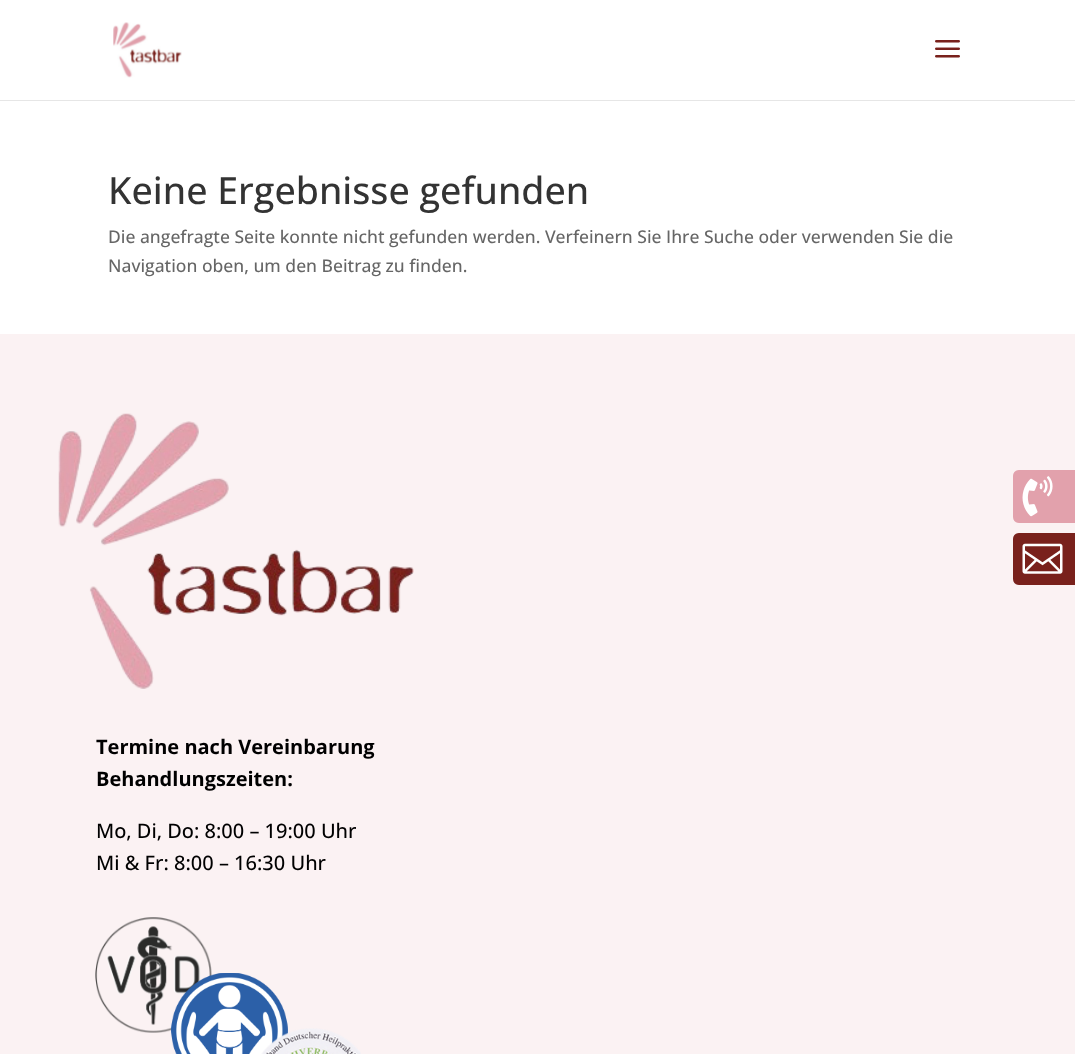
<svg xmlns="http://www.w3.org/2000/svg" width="1075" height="1054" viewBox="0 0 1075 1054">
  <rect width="100%" height="100%" fill="#ffffff"/>
  <rect x="0" y="100" width="1075" height="1" fill="#e6e6e6"/>
  <image x="113" y="22" width="69" height="56" href="img1.png"/>
  <image x="935" y="40" width="25" height="18" href="img2.png"/>
  <text x="108" y="204" font-family="Open Sans" font-size="37.5" font-weight="500" fill="#333333">Keine Ergebnisse gefunden</text>
  <text x="108" y="243" font-family="Open Sans" font-size="17.5" font-weight="500" fill="#666666">Die angefragte Seite konnte nicht gefunden werden. Verfeinern Sie Ihre Suche oder verwenden Sie die</text>
  <text x="108" y="272" font-family="Open Sans" font-size="17.5" font-weight="500" fill="#666666">Navigation oben, um den Beitrag zu finden.</text>
  <rect x="0" y="334" width="1075" height="720" fill="#fbf2f3"/>
  <path d="M1019 470H1075V523H1019C1015.5 523 1013 520.5 1013 517V476C1013 472.5 1015.5 470 1019 470Z" fill="#e2a1ac"/>
  <image x="1022" y="476" width="31" height="41" href="img3.png"/>
  <path d="M1019 533H1075V585H1019C1015.5 585 1013 582.5 1013 579V539C1013 535.5 1015.5 533 1019 533Z" fill="#79211c"/>
  <image x="1022" y="543" width="41" height="31" href="img4.png"/>
  <image x="58" y="413" width="356" height="276" href="img5.png"/>
  <text x="96" y="754" font-family="Open Sans" font-size="20" font-weight="bold" fill="#000000">Termine nach Vereinbarung</text>
  <text x="96" y="786" font-family="Open Sans" font-size="20" font-weight="bold" fill="#000000">Behandlungszeiten:</text>
  <text x="96" y="838" font-family="Open Sans" font-size="20" font-weight="500" fill="#000000">Mo, Di, Do: 8:00 – 19:00 Uhr</text>
  <text x="96" y="870" font-family="Open Sans" font-size="20" font-weight="500" fill="#000000">Mi &amp; Fr: 8:00 – 16:30 Uhr</text>
  <image x="95" y="917" width="117" height="116" href="img6.png"/>
  <image x="171" y="973" width="117" height="81" href="img7.png"/>
  <image x="261" y="1028" width="100" height="26" href="img8.png"/>
</svg>
